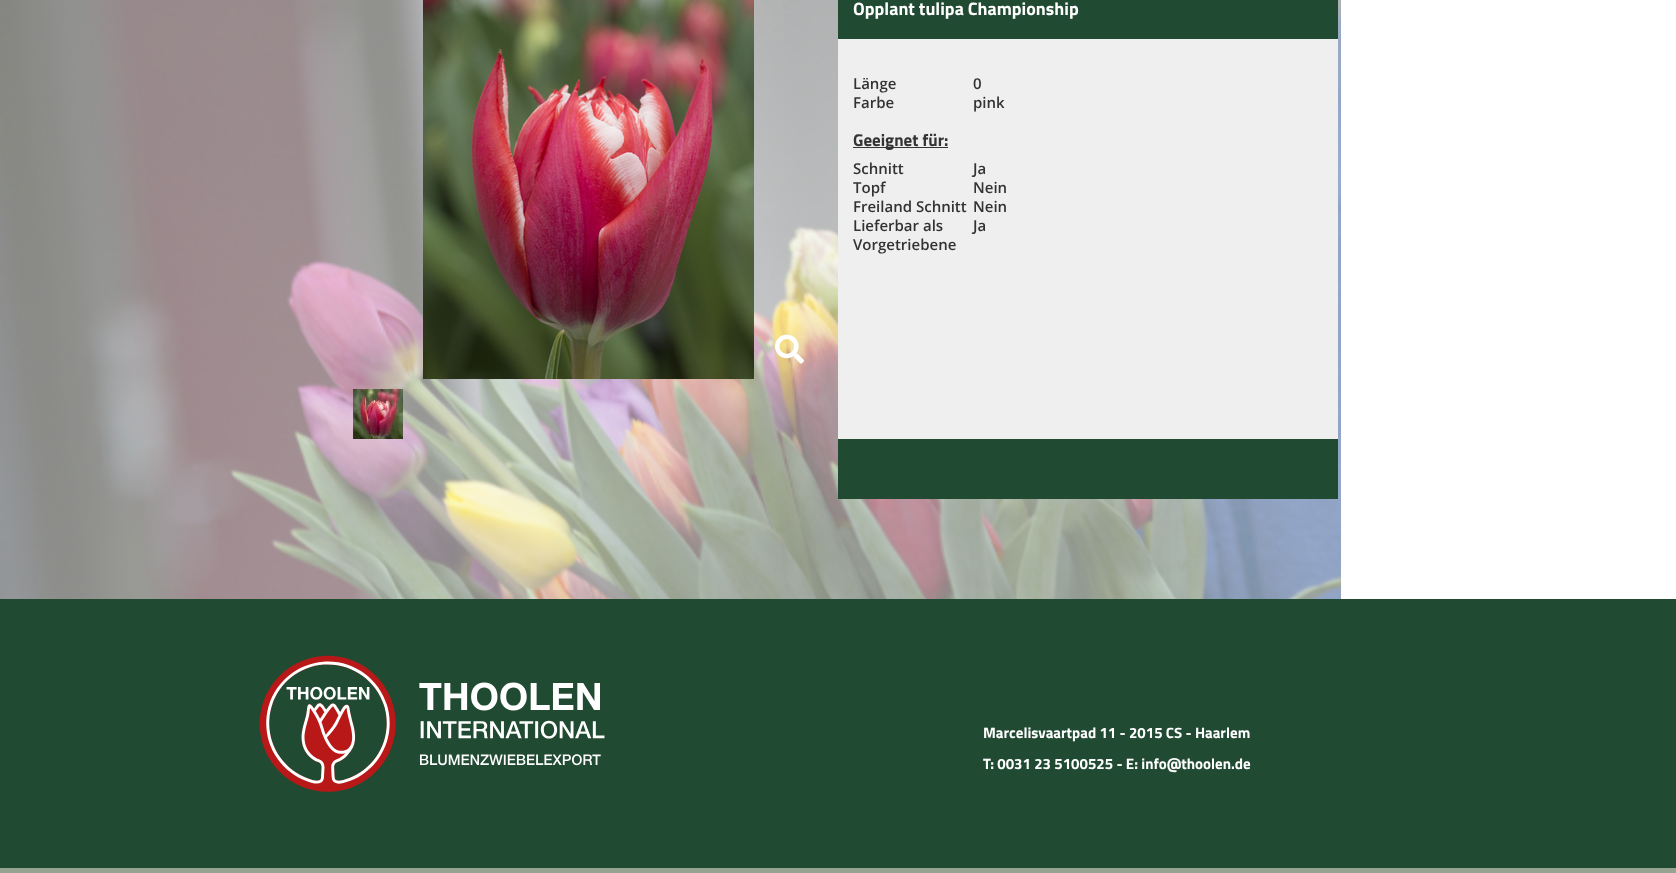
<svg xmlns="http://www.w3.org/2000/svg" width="1676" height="873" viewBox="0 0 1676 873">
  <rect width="100%" height="100%" fill="#ffffff"/>
  <image x="0" y="0" width="1341" height="599" href="img1.png"/>
  <rect x="0" y="0" width="1341" height="599" fill="#ffffff" fill-opacity="0.5"/>
  <image x="423" y="0" width="331" height="379" href="img2.png"/>
  <image x="775" y="334" width="29" height="30" href="img3.png"/>
  <image x="353" y="389" width="50" height="50" href="img4.png"/>
  <rect x="838" y="39" width="500" height="400" fill="#efefef"/>
  <rect x="838" y="0" width="500" height="39" fill="#214a32"/>
  <text x="853" y="15" font-family="Titillium Web" font-size="18" font-weight="bold" fill="#ffffff">Opplant tulipa Championship</text>
  <text x="853" y="89" font-family="Open Sans" font-size="15" font-weight="600" fill="#333333">Länge</text>
  <text x="973" y="89" font-family="Open Sans" font-size="15" font-weight="600" fill="#333333">0</text>
  <text x="853" y="108" font-family="Open Sans" font-size="15" font-weight="600" fill="#333333">Farbe</text>
  <text x="973" y="108" font-family="Open Sans" font-size="15" font-weight="600" fill="#333333">pink</text>
  <rect x="853" y="147" width="95" height="1" fill="#333333"/>
  <text x="853" y="146" font-family="Titillium Web" font-size="17" font-weight="bold" fill="#333333">Geeignet für:</text>
  <text x="853" y="174" font-family="Open Sans" font-size="15" font-weight="600" fill="#333333">Schnitt</text>
  <text x="973" y="174" font-family="Open Sans" font-size="15" font-weight="600" fill="#333333">Ja</text>
  <text x="853" y="193" font-family="Open Sans" font-size="15" font-weight="600" fill="#333333">Topf</text>
  <text x="973" y="193" font-family="Open Sans" font-size="15" font-weight="600" fill="#333333">Nein</text>
  <text x="853" y="212" font-family="Open Sans" font-size="15" font-weight="600" fill="#333333">Freiland Schnitt</text>
  <text x="973" y="212" font-family="Open Sans" font-size="15" font-weight="600" fill="#333333">Nein</text>
  <text x="853" y="231" font-family="Open Sans" font-size="15" font-weight="600" fill="#333333">Lieferbar als</text>
  <text x="853" y="250" font-family="Open Sans" font-size="15" font-weight="600" fill="#333333">Vorgetriebene</text>
  <text x="973" y="231" font-family="Open Sans" font-size="15" font-weight="600" fill="#333333">Ja</text>
  <rect x="838" y="439" width="500" height="60" fill="#214a32"/>
  <rect x="0" y="599" width="1676" height="269" fill="#214a32"/>
  <image x="259" y="655" width="346" height="137" href="img5.png"/>
  <text x="983" y="738" font-family="Titillium Web" font-size="15" font-weight="bold" fill="#ffffff">Marcelisvaartpad 11 - 2015 CS - Haarlem</text>
  <text x="983" y="769" font-family="Titillium Web" font-size="15" font-weight="bold" fill="#ffffff">T: 0031 23 5100525 - E: info@thoolen.de</text>
  <rect x="0" y="868" width="1676" height="5" fill="#96a390"/>
</svg>
